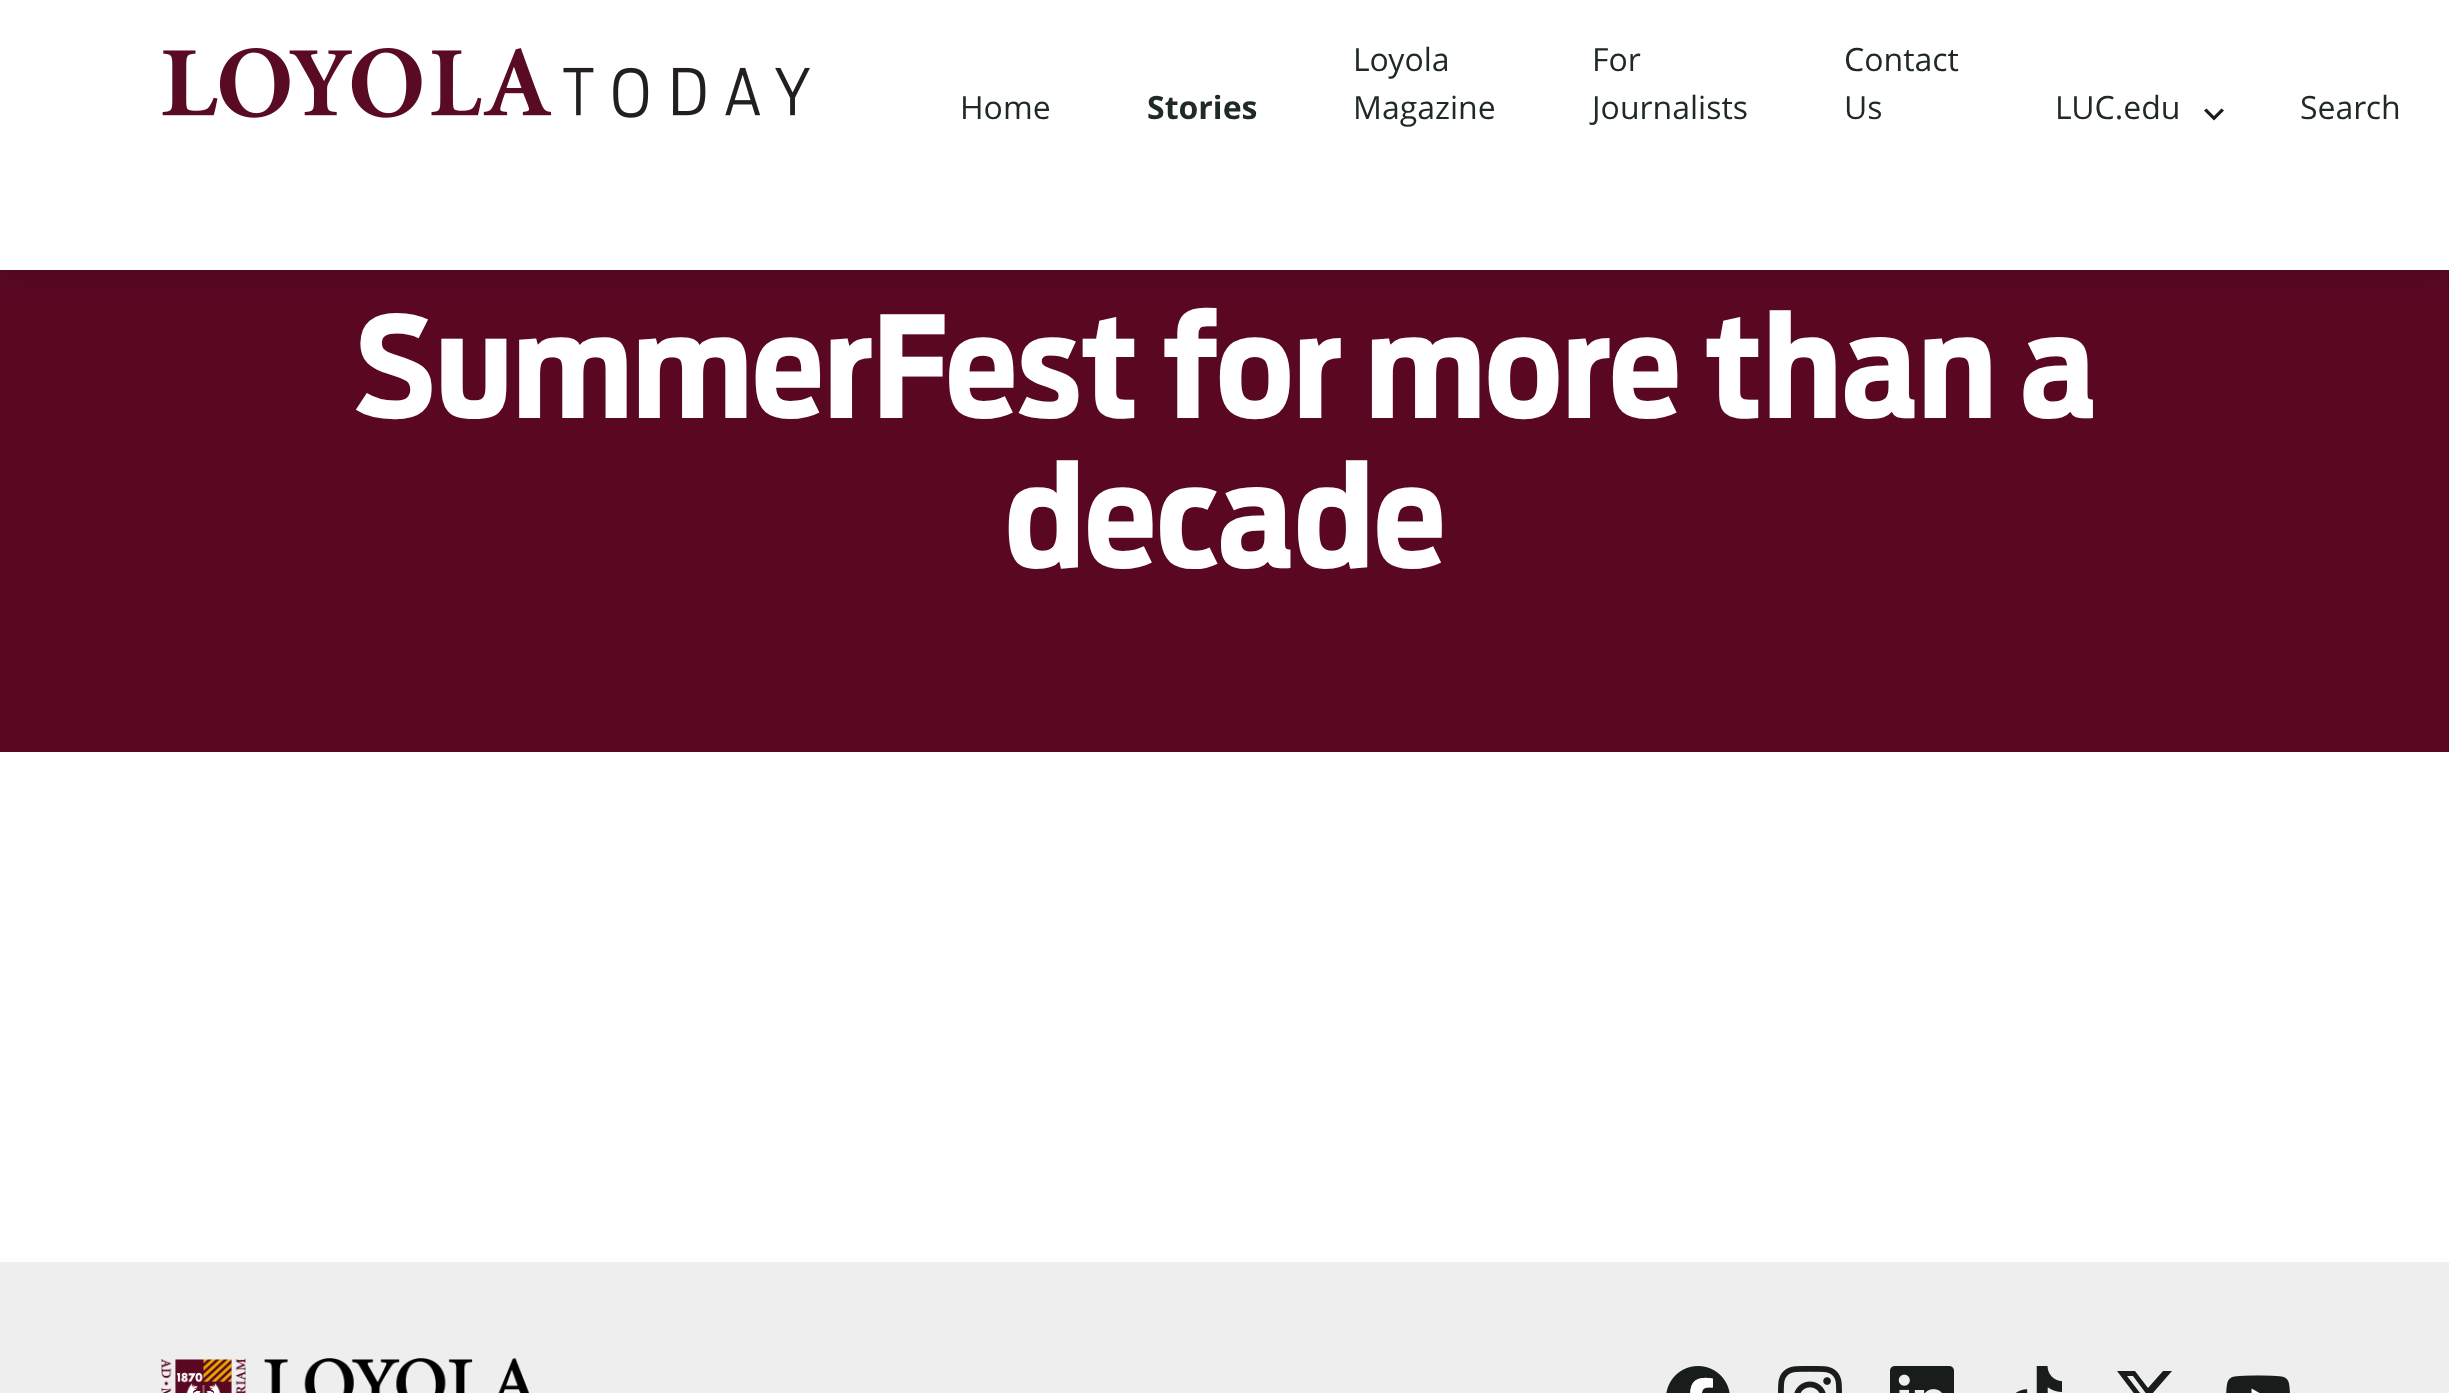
<svg xmlns="http://www.w3.org/2000/svg" width="2449" height="1393" viewBox="0 0 2449 1393">
  <defs>
    <filter id="blur1" x="-50%" y="-200%" width="200%" height="500%"><feGaussianBlur stdDeviation="16"/></filter>
  </defs>
  <rect width="100%" height="100%" fill="#ffffff"/>
  <rect x="0" y="270" width="2449" height="482" fill="#5a0722"/>
  <rect x="0" y="-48" width="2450" height="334" fill="#000000" fill-opacity="0.08" filter="url(#blur1)"/>
  <rect x="0" y="0" width="2449" height="270" fill="#ffffff"/>
  <image x="162" y="48" width="648" height="70" href="img1.png"/>
  <text x="960" y="119" font-family="Open Sans" font-size="32" fill="#202a25">Home</text>
  <text x="1147" y="119" font-family="Open Sans" font-size="32" font-weight="bold" fill="#202a25">Stories</text>
  <text x="1353" y="71" font-family="Open Sans" font-size="32" fill="#202a25">Loyola</text>
  <text x="1353" y="119" font-family="Open Sans" font-size="32" fill="#202a25">Magazine</text>
  <text x="1592" y="71" font-family="Open Sans" font-size="32" fill="#202a25">For</text>
  <text x="1592" y="119" font-family="Open Sans" font-size="32" fill="#202a25">Journalists</text>
  <text x="1844" y="71" font-family="Open Sans" font-size="32" fill="#202a25">Contact</text>
  <text x="1844" y="119" font-family="Open Sans" font-size="32" fill="#202a25">Us</text>
  <text x="2055" y="119" font-family="Open Sans" font-size="32" fill="#202a25">LUC.edu</text>
  <path d="M2206.5 108.5L2214 116L2221.5 108.5L2224 110.5L2214 120.5L2204 110.5Z" fill="#181d1c"/>
  <text x="2300" y="119" font-family="Open Sans" font-size="32" fill="#202a25">Search</text>
  <text x="354" y="418" font-family="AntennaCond" font-size="140" font-weight="bold" fill="#ffffff">SummerFest for more than a</text>
  <text x="1005" y="568" font-family="AntennaCond" font-size="140" font-weight="bold" fill="#ffffff">decade</text>
  <rect x="0" y="1262" width="2449" height="131" fill="#eeeeee"/>
  <image x="161" y="1358" width="369" height="35" href="img2.png"/>
  <image x="1666" y="1366" width="64" height="27" href="img3.png"/>
  <image x="1778" y="1366" width="64" height="27" href="img4.png"/>
  <image x="1890" y="1366" width="64" height="27" href="img5.png"/>
  <image x="2015" y="1366" width="47" height="27" href="img6.png"/>
  <path d="M2163 1371H2172L2152 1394L2175 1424H2157L2143 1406L2127 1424H2118L2139 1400L2117 1371H2135L2148 1388ZM2160 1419H2165L2133 1376H2127Z" fill="#181d1c"/>
  <image x="2226" y="1375" width="64" height="18" href="img7.png"/>
</svg>
